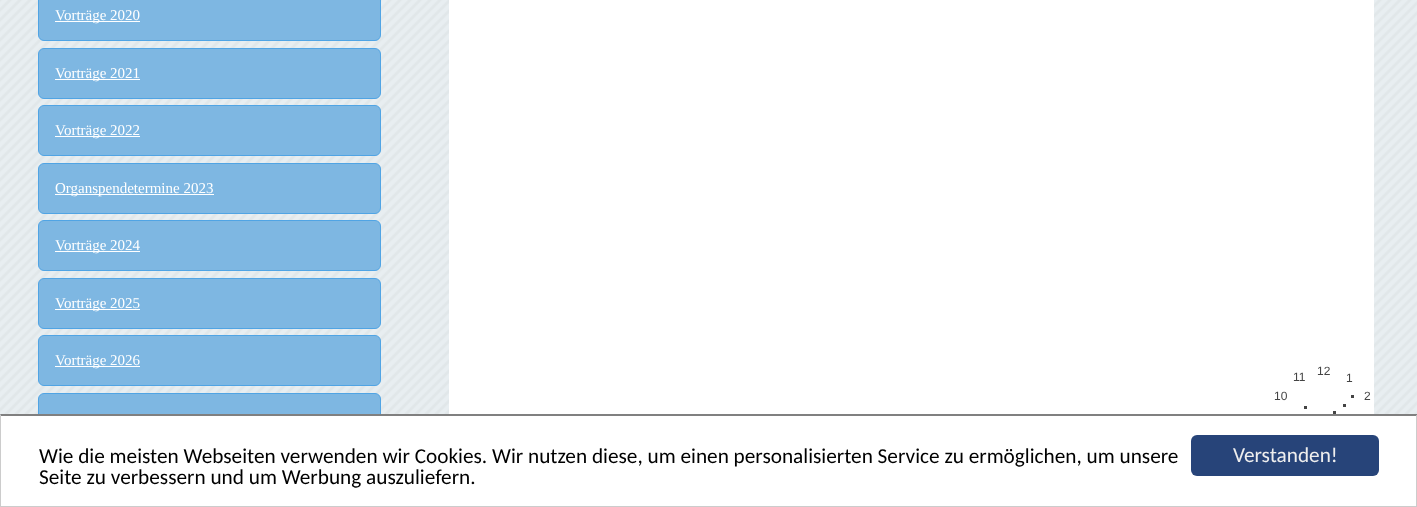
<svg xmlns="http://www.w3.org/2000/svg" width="1417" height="507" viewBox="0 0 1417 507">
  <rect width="100%" height="100%" fill="#ffffff"/>
  <image x="0" y="0" width="1417" height="416" href="img1.png"/>
  <rect x="38.5" y="-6.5" width="342" height="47" rx="5.5" fill="#7eb7e2" stroke="#50a4e4"/>
  <rect x="55" y="21" width="85" height="1" fill="#ffffff"/>
  <text x="55" y="20" font-family="Liberation Serif" font-size="15" fill="#ffffff">Vorträge 2020</text>
  <rect x="38.5" y="48.5" width="342" height="50" rx="5.5" fill="#7eb7e2" stroke="#50a4e4"/>
  <rect x="55" y="79" width="85" height="1" fill="#ffffff"/>
  <text x="55" y="78" font-family="Liberation Serif" font-size="15" fill="#ffffff">Vorträge 2021</text>
  <rect x="38.5" y="105.5" width="342" height="50" rx="5.5" fill="#7eb7e2" stroke="#50a4e4"/>
  <rect x="55" y="136" width="85" height="1" fill="#ffffff"/>
  <text x="55" y="135" font-family="Liberation Serif" font-size="15" fill="#ffffff">Vorträge 2022</text>
  <rect x="38.5" y="163.5" width="342" height="50" rx="5.5" fill="#7eb7e2" stroke="#50a4e4"/>
  <rect x="55" y="194" width="159" height="1" fill="#ffffff"/>
  <text x="55" y="193" font-family="Liberation Serif" font-size="15" fill="#ffffff">Organspendetermine 2023</text>
  <rect x="38.5" y="220.5" width="342" height="50" rx="5.5" fill="#7eb7e2" stroke="#50a4e4"/>
  <rect x="55" y="251" width="85" height="1" fill="#ffffff"/>
  <text x="55" y="250" font-family="Liberation Serif" font-size="15" fill="#ffffff">Vorträge 2024</text>
  <rect x="38.5" y="278.5" width="342" height="50" rx="5.5" fill="#7eb7e2" stroke="#50a4e4"/>
  <rect x="55" y="309" width="85" height="1" fill="#ffffff"/>
  <text x="55" y="308" font-family="Liberation Serif" font-size="15" fill="#ffffff">Vorträge 2025</text>
  <rect x="38.5" y="335.5" width="342" height="50" rx="5.5" fill="#7eb7e2" stroke="#50a4e4"/>
  <rect x="55" y="366" width="85" height="1" fill="#ffffff"/>
  <text x="55" y="365" font-family="Liberation Serif" font-size="15" fill="#ffffff">Vorträge 2026</text>
  <rect x="38.5" y="393.5" width="342" height="50" rx="5.5" fill="#7eb7e2" stroke="#50a4e4"/>
  <rect x="449" y="0" width="925" height="414" fill="#ffffff"/>
  <text x="1317" y="375" font-family="Liberation Sans" font-size="12" fill="#444444">12</text>
  <text x="1293" y="381" font-family="Liberation Sans" font-size="12" fill="#444444">11</text>
  <text x="1346" y="382" font-family="Liberation Sans" font-size="12" fill="#444444">1</text>
  <text x="1274" y="400" font-family="Liberation Sans" font-size="12" fill="#444444">10</text>
  <rect x="1351" y="395" width="3" height="3" fill="#444444"/>
  <text x="1364" y="400" font-family="Liberation Sans" font-size="12" fill="#444444">2</text>
  <rect x="1343" y="404" width="3" height="3" fill="#444444"/>
  <rect x="1304" y="406" width="3" height="3" fill="#444444"/>
  <rect x="1333" y="411" width="3" height="3" fill="#444444"/>
  <rect x="38" y="416" width="343" height="28" fill="#ffffff"/>
  <path d="M0 414H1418L1416 416H1Z" fill="#808080"/>
  <path d="M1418 414V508L1416 506V416Z" fill="#cccccc"/>
  <rect x="0" y="506" width="1417" height="1" fill="#cccccc"/>
  <path d="M0 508V414L1 416V506Z" fill="#cccccc"/>
  <text x="39" y="463" font-family="Carlito" font-size="21.25" fill="#000000">Wie die meisten Webseiten verwenden wir Cookies. Wir nutzen diese, um einen personalisierten Service zu ermöglichen, um unsere</text>
  <text x="39" y="484" font-family="Carlito" font-size="21.25" fill="#000000">Seite zu verbessern und um Werbung auszuliefern.</text>
  <rect x="1191" y="435" width="188" height="41" rx="6" fill="#274479"/>
  <text x="1233" y="462" font-family="Carlito" font-size="21.25" fill="#eeeeee">Verstanden!</text>
</svg>
